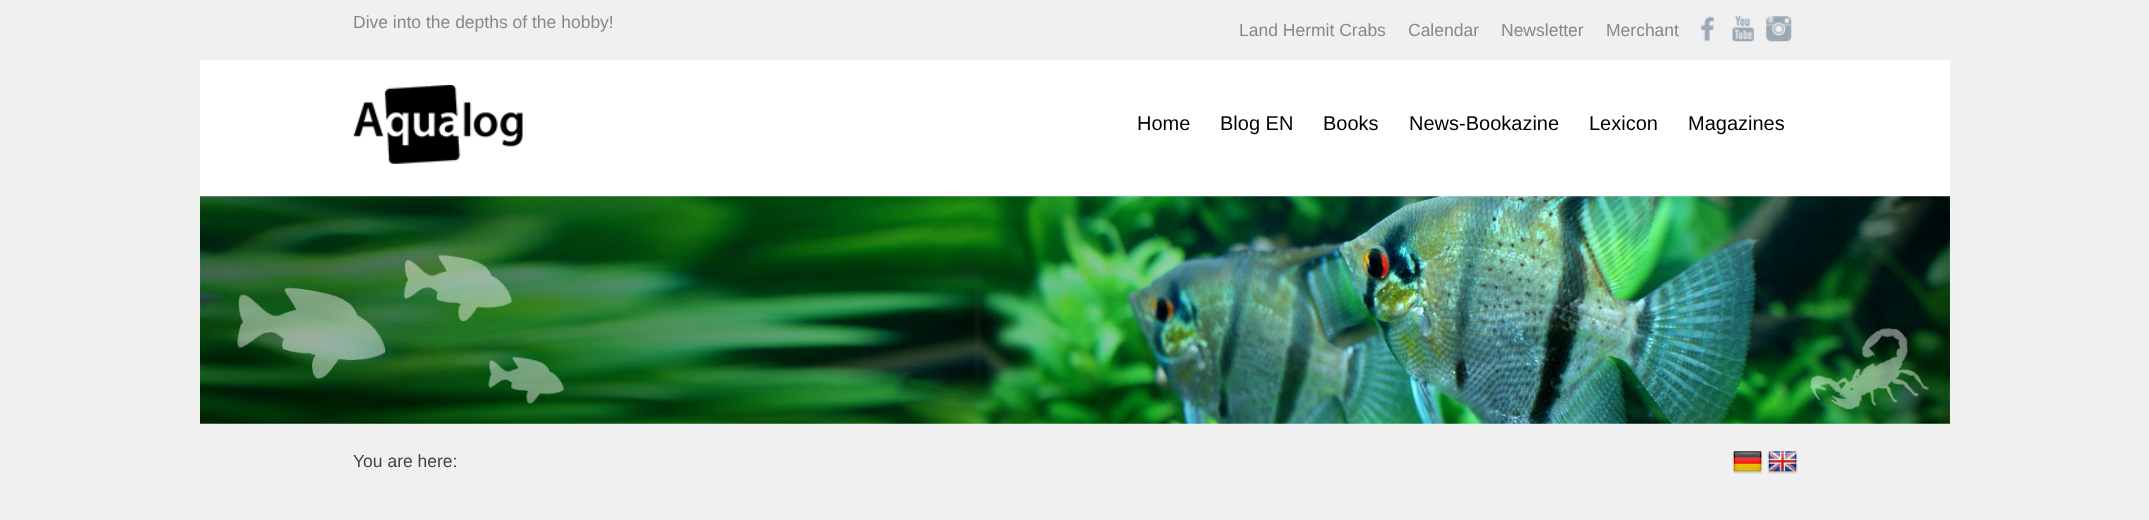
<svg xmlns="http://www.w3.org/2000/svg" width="2149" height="520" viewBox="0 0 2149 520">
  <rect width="100%" height="100%" fill="#f0f0f0"/>
  <text x="353" y="28" font-family="Liberation Sans" font-size="17.5" fill="#888888">Dive into the depths of the hobby!</text>
  <text x="1239" y="36" font-family="Liberation Sans" font-size="17.5" fill="#888888">Land Hermit Crabs</text>
  <text x="1408" y="36" font-family="Liberation Sans" font-size="17.5" fill="#888888">Calendar</text>
  <text x="1501" y="36" font-family="Liberation Sans" font-size="17.5" fill="#888888">Newsletter</text>
  <text x="1606" y="36" font-family="Liberation Sans" font-size="17.5" fill="#888888">Merchant</text>
  <image x="1700" y="16" width="14" height="26" href="img1.png"/>
  <image x="1732" y="16" width="22" height="26" href="img2.png"/>
  <image x="1766" y="16" width="26" height="26" href="img3.png"/>
  <rect x="200" y="60" width="1750" height="136" fill="#ffffff"/>
  <image x="353" y="85" width="170" height="79" href="img4.png"/>
  <text x="1137" y="130" font-family="Liberation Sans" font-size="20" fill="#000000">Home</text>
  <text x="1220" y="130" font-family="Liberation Sans" font-size="20" fill="#000000">Blog EN</text>
  <text x="1323" y="130" font-family="Liberation Sans" font-size="20" fill="#000000">Books</text>
  <text x="1409" y="130" font-family="Liberation Sans" font-size="20" fill="#000000">News-Bookazine</text>
  <text x="1589" y="130" font-family="Liberation Sans" font-size="20" fill="#000000">Lexicon</text>
  <text x="1688" y="130" font-family="Liberation Sans" font-size="20" fill="#000000">Magazines</text>
  <image x="200" y="196" width="1750" height="228" href="img5.png"/>
  <text x="353" y="467" font-family="Liberation Sans" font-size="17.5" fill="#444444">You are here:</text>
  <image x="1732" y="451" width="31" height="23" href="img6.png"/>
  <image x="1767" y="451" width="31" height="23" href="img7.png"/>
</svg>
